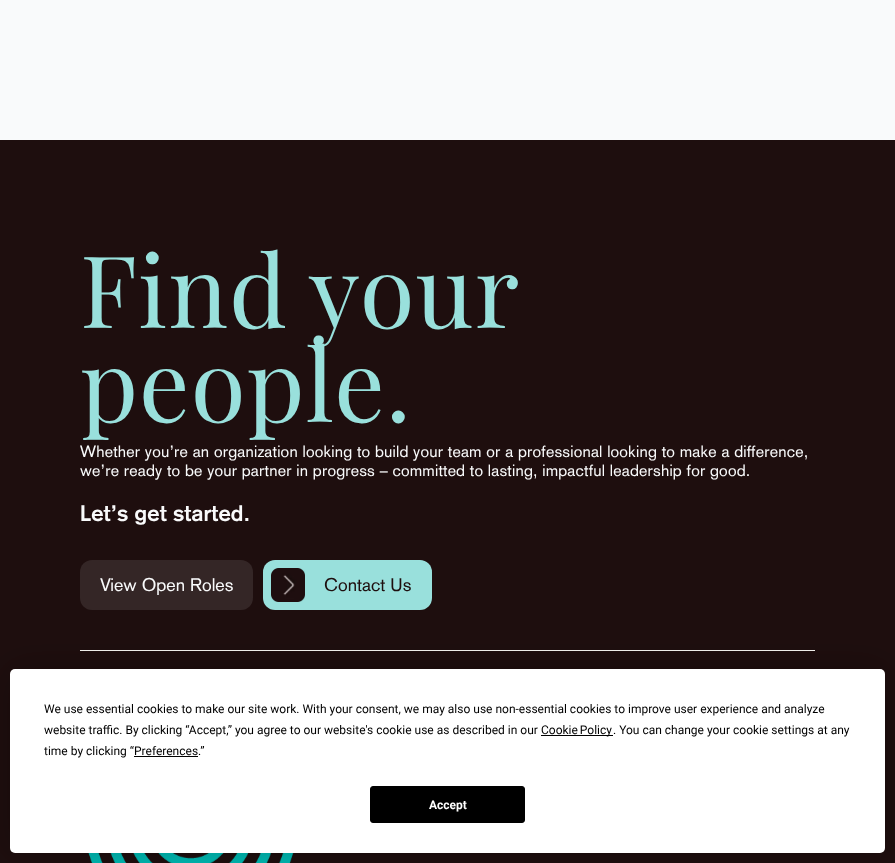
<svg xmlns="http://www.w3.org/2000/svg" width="895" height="863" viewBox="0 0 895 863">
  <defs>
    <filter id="blur1" x="-50%" y="-200%" width="200%" height="500%"><feGaussianBlur stdDeviation="17.5"/></filter>
  </defs>
  <rect width="100%" height="100%" fill="#f9fafb"/>
  <rect x="0" y="140" width="895" height="723" fill="#1e0e0e"/>
  <rect x="80" y="650" width="735" height="1" fill="#f7f6f2"/>
  <text x="80" y="328" word-spacing="-2" font-family="Playfair Display" font-size="100" letter-spacing="1" fill="#99e0dc">Find your</text>
  <text x="80" y="422" font-family="Playfair Display" font-size="100" letter-spacing="1" fill="#99e0dc">people.</text>
  <text x="80" y="457" font-family="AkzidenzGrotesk" font-size="16" letter-spacing="0.18" fill="#f9fafb">Whether you’re an organization looking to build your team or a professional looking to make a difference,</text>
  <text x="80" y="476" font-family="AkzidenzGrotesk" font-size="16" letter-spacing="0.18" fill="#f9fafb">we’re ready to be your partner in progress – committed to lasting, impactful leadership for good.</text>
  <text x="80" y="521" font-family="AkzidenzGrotesk" font-size="22" font-weight="bold" letter-spacing="0.18" fill="#f9fafb">Let’s get started.</text>
  <rect x="80" y="560" width="173" height="50" rx="12" fill="#342626"/>
  <text x="100" y="591" font-family="AkzidenzGrotesk" font-size="18" fill="#f9fafb">View Open Roles</text>
  <rect x="263" y="560" width="169" height="50" rx="12" fill="#99e0dc"/>
  <image x="271" y="568" width="34" height="34" href="img1.png"/>
  <text x="324" y="591" font-family="AkzidenzGrotesk" font-size="18" fill="#1e0e0e">Contact Us</text>
  <image x="88" y="853" width="206" height="10" href="img2.png"/>
  <rect x="10" y="669" width="875" height="184" rx="5" fill="#000000" fill-opacity="0.25" filter="url(#blur1)"/>
  <rect x="10" y="669" width="875" height="184" rx="5" fill="#ffffff"/>
  <text x="44" y="713" font-family="Roboto" font-size="12" fill="#000000">We use essential cookies to make our site work. With your consent, we may also use non-essential cookies to improve user experience and analyze</text>
  <text x="44" y="734" font-family="Roboto" font-size="12" fill="#000000">website traffic. By clicking “Accept,” you agree to our website's cookie use as described in our</text>
  <rect x="541" y="735" width="72" height="1" fill="#000000"/>
  <text x="541" y="734" word-spacing="-1" font-family="Roboto" font-size="12" fill="#000000">Cookie Policy</text>
  <text x="613" y="734" font-family="Roboto" font-size="12" fill="#000000">. You can change your cookie settings at any</text>
  <text x="44" y="755" font-family="Roboto" font-size="12" fill="#000000">time by clicking “Preferences.”</text>
  <rect x="134" y="756" width="64" height="1" fill="#000000"/>
  <rect x="370.5" y="786.5" width="154" height="36" rx="2.5" fill="#000000" stroke="#000000"/>
  <text x="429" y="809" font-family="Roboto" font-size="12" font-weight="bold" fill="#ffffff">Accept</text>
</svg>
